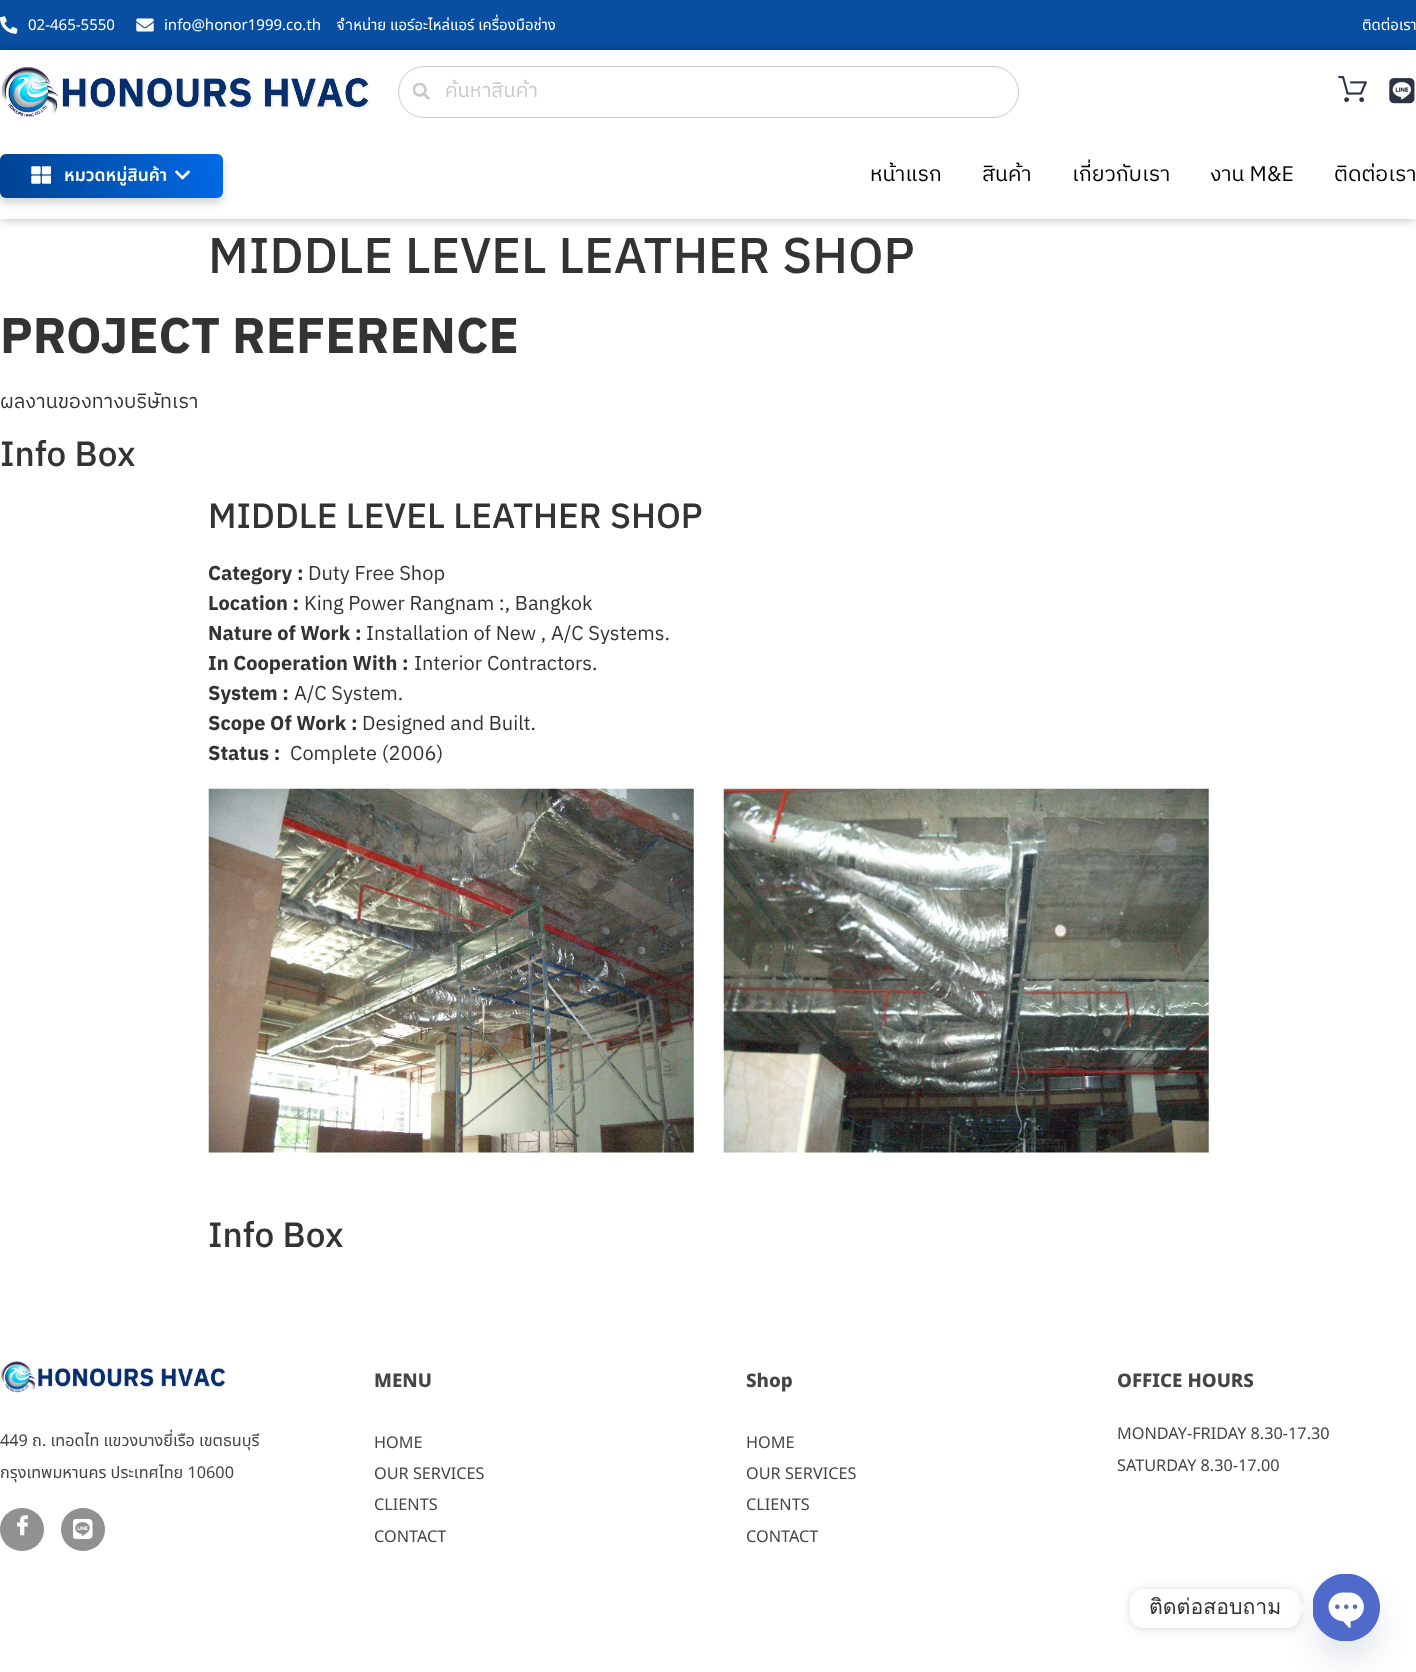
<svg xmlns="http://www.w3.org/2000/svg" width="1416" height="1672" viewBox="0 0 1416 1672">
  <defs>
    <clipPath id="clip1"><path d="M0 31H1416V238H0ZM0 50H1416V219H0Z" clip-rule="evenodd"/></clipPath>
    <filter id="blur1" x="-50%" y="-200%" width="200%" height="500%"><feGaussianBlur stdDeviation="6"/></filter>
    <clipPath id="clip2"><rect x="445" y="75" width="558" height="34"/></clipPath>
    <filter id="blur2" x="-50%" y="-200%" width="200%" height="500%"><feGaussianBlur stdDeviation="4"/></filter>
    <linearGradient id="g1" gradientUnits="userSpaceOnUse" x1="0.4" y1="199" x2="222" y2="152"><stop offset="0" stop-color="#004391"/><stop offset="1" stop-color="#006ae6"/></linearGradient>
    <filter id="blur3" x="-50%" y="-200%" width="200%" height="500%"><feGaussianBlur stdDeviation="5"/></filter>
    <filter id="blur4" x="-50%" y="-200%" width="200%" height="500%"><feGaussianBlur stdDeviation="15"/></filter>
  </defs>
  <rect width="100%" height="100%" fill="#ffffff"/>
  <rect x="0" y="0" width="1416" height="50" fill="#084fa2"/>
  <image x="0" y="16" width="18" height="18" href="img1.png"/>
  <text x="28" y="30" font-family="Noto Sans Thai" font-size="15" fill="#ffffff">02-465-5550</text>
  <image x="136" y="18" width="18" height="14" href="img2.png"/>
  <text x="164" y="30" font-family="Noto Sans Thai" font-size="15" fill="#ffffff">info@honor1999.co.th</text>
  <text x="336" y="30" font-family="Noto Sans Thai" font-size="15" fill="#ffffff">จำหน่าย แอร์อะไหล่แอร์ เครื่องมือช่าง</text>
  <text x="1362" y="30" font-family="Noto Sans Thai" font-size="15" fill="#ffffff">ติดต่อเรา</text>
  <g clip-path="url(#clip1)">
    <rect x="0" y="50" width="1416" height="169" fill="#000000" fill-opacity="0.28" filter="url(#blur1)"/>
  </g>
  <image x="1" y="67" width="369" height="50" href="img3.png"/>
  <rect x="398.5" y="66.5" width="620" height="51" rx="25.5" fill="none" stroke="#cacaca"/>
  <image x="413" y="83" width="17" height="17" href="img4.png"/>
  <g clip-path="url(#clip2)">
    <text x="445" y="97" font-family="IBM Plex Sans Thai" font-size="20" fill="#cacaca">ค้นหาสินค้า</text>
  </g>
  <image x="1338" y="76" width="29" height="27" href="img5.png"/>
  <image x="1389" y="78" width="26" height="26" href="img6.png"/>
  <rect x="0" y="159" width="223" height="44" rx="6" fill="#000000" fill-opacity="0.17" filter="url(#blur2)"/>
  <rect x="0" y="154" width="223" height="44" rx="6" fill="url(#g1)"/>
  <image x="31" y="166" width="20" height="18" href="img7.png"/>
  <text x="64" y="181" font-family="Noto Sans Thai" font-size="17.5" font-weight="600" fill="#ffffff">หมวดหมู่สินค้า</text>
  <image x="175" y="170" width="15" height="10" href="img8.png"/>
  <text x="870" y="181" font-family="IBM Plex Sans Thai" font-size="21.25" fill="#000000">หน้าแรก</text>
  <text x="982" y="181" font-family="IBM Plex Sans Thai" font-size="21.25" fill="#000000">สินค้า</text>
  <text x="1072" y="181" font-family="IBM Plex Sans Thai" font-size="21.25" fill="#000000">เกี่ยวกับเรา</text>
  <text x="1210" y="181" font-family="IBM Plex Sans Thai" font-size="21.25" fill="#000000">งาน M&amp;E</text>
  <text x="1334" y="181" font-family="IBM Plex Sans Thai" font-size="21.25" fill="#000000">ติดต่อเรา</text>
  <text x="208" y="273" font-family="IBM Plex Sans Thai" font-size="50" font-weight="500" fill="#333333">MIDDLE LEVEL LEATHER SHOP</text>
  <text x="0" y="353" font-family="IBM Plex Sans Thai" font-size="50" font-weight="bold" fill="#333333">PROJECT REFERENCE</text>
  <text x="0" y="408" font-family="IBM Plex Sans Thai" font-size="20" fill="#333333">ผลงานของทางบริษัทเรา</text>
  <text x="0" y="466" font-family="IBM Plex Sans Thai" font-size="35" font-weight="500" fill="#333333">Info Box</text>
  <text x="208" y="528" font-family="IBM Plex Sans Thai" font-size="35" font-weight="500" fill="#333333">MIDDLE LEVEL LEATHER SHOP</text>
  <text x="208" y="580" font-family="IBM Plex Sans Thai" font-size="20" font-weight="bold" fill="#333333">Category :</text>
  <text x="308" y="580" font-family="IBM Plex Sans Thai" font-size="20" fill="#333333">Duty Free Shop</text>
  <text x="208" y="610" font-family="IBM Plex Sans Thai" font-size="20" font-weight="bold" fill="#333333">Location :</text>
  <text x="304" y="610" font-family="IBM Plex Sans Thai" font-size="20" fill="#333333">King Power Rangnam :, Bangkok</text>
  <text x="208" y="640" font-family="IBM Plex Sans Thai" font-size="20" font-weight="bold" fill="#333333">Nature of Work :</text>
  <text x="366" y="640" font-family="IBM Plex Sans Thai" font-size="20" fill="#333333">Installation of New , A/C Systems.</text>
  <text x="208" y="670" font-family="IBM Plex Sans Thai" font-size="20" font-weight="bold" fill="#333333">In Cooperation With :</text>
  <text x="414" y="670" font-family="IBM Plex Sans Thai" font-size="20" fill="#333333">Interior Contractors.</text>
  <text x="208" y="700" font-family="IBM Plex Sans Thai" font-size="20" font-weight="bold" fill="#333333">System :</text>
  <text x="294" y="700" font-family="IBM Plex Sans Thai" font-size="20" fill="#333333">A/C System.</text>
  <text x="208" y="730" font-family="IBM Plex Sans Thai" font-size="20" font-weight="bold" fill="#333333">Scope Of Work :</text>
  <text x="362" y="730" font-family="IBM Plex Sans Thai" font-size="20" fill="#333333">Designed and Built.</text>
  <text x="208" y="760" font-family="IBM Plex Sans Thai" font-size="20" font-weight="bold" fill="#333333">Status :</text>
  <text x="290" y="760" font-family="IBM Plex Sans Thai" font-size="20" fill="#333333">Complete (2006)</text>
  <image x="208" y="788" width="486" height="365" href="img9.png"/>
  <image x="723" y="788" width="486" height="365" href="img10.png"/>
  <text x="208" y="1247" font-family="IBM Plex Sans Thai" font-size="35" font-weight="500" fill="#333333">Info Box</text>
  <image x="0" y="1361" width="226" height="32" href="img11.png"/>
  <text x="0" y="1446" font-family="Noto Sans Thai" font-size="16.25" fill="#464545">449 ถ. เทอดไท แขวงบางยี่เรือ เขตธนบุรี</text>
  <text x="0" y="1478" font-family="Noto Sans Thai" font-size="16.25" fill="#464545">กรุงเทพมหานคร ประเทศไทย 10600</text>
  <rect x="0" y="1508" width="44" height="43" rx="21.5" fill="#919191"/>
  <image x="17" y="1515" width="11" height="21" href="img12.png"/>
  <rect x="61" y="1508" width="44" height="43" rx="21.5" fill="#919191"/>
  <image x="73" y="1518" width="20" height="21" href="img13.png"/>
  <text x="374" y="1387" font-family="Noto Sans Thai" font-size="18.75" font-weight="800" fill="#464545">MENU</text>
  <text x="374" y="1448" font-family="Noto Sans Thai" font-size="16.25" fill="#464545">HOME</text>
  <text x="374" y="1479" font-family="Noto Sans Thai" font-size="16.25" fill="#464545">OUR SERVICES</text>
  <text x="374" y="1510" font-family="Noto Sans Thai" font-size="16.25" fill="#464545">CLIENTS</text>
  <text x="374" y="1542" font-family="Noto Sans Thai" font-size="16.25" fill="#464545">CONTACT</text>
  <text x="746" y="1387" font-family="Noto Sans Thai" font-size="18.75" font-weight="800" fill="#464545">Shop</text>
  <text x="746" y="1448" font-family="Noto Sans Thai" font-size="16.25" fill="#464545">HOME</text>
  <text x="746" y="1479" font-family="Noto Sans Thai" font-size="16.25" fill="#464545">OUR SERVICES</text>
  <text x="746" y="1510" font-family="Noto Sans Thai" font-size="16.25" fill="#464545">CLIENTS</text>
  <text x="746" y="1542" font-family="Noto Sans Thai" font-size="16.25" fill="#464545">CONTACT</text>
  <text x="1117" y="1387" font-family="Noto Sans Thai" font-size="18.75" font-weight="800" fill="#464545">OFFICE HOURS</text>
  <text x="1117" y="1439" font-family="Noto Sans Thai" font-size="16.25" fill="#464545">MONDAY-FRIDAY 8.30-17.30</text>
  <text x="1117" y="1471" font-family="Noto Sans Thai" font-size="16.25" fill="#464545">SATURDAY 8.30-17.00</text>
  <rect x="1130" y="1590" width="170" height="39" rx="13" fill="#000000" fill-opacity="0.15" filter="url(#blur3)"/>
  <rect x="1130" y="1589" width="170" height="39" rx="13" fill="#ffffff"/>
  <text x="1149" y="1614" font-family="Loma" font-size="21.25" fill="#333333">ติดต่อสอบถาม</text>
  <path d="M1300 1614.5V1602L1306 1608Z" fill="#ffffff"/>
  <rect x="1313" y="1594" width="67" height="67" rx="33.5" fill="#49687e" fill-opacity="0.16" filter="url(#blur4)"/>
  <image x="1313" y="1574" width="67" height="67" href="img14.png"/>
</svg>
